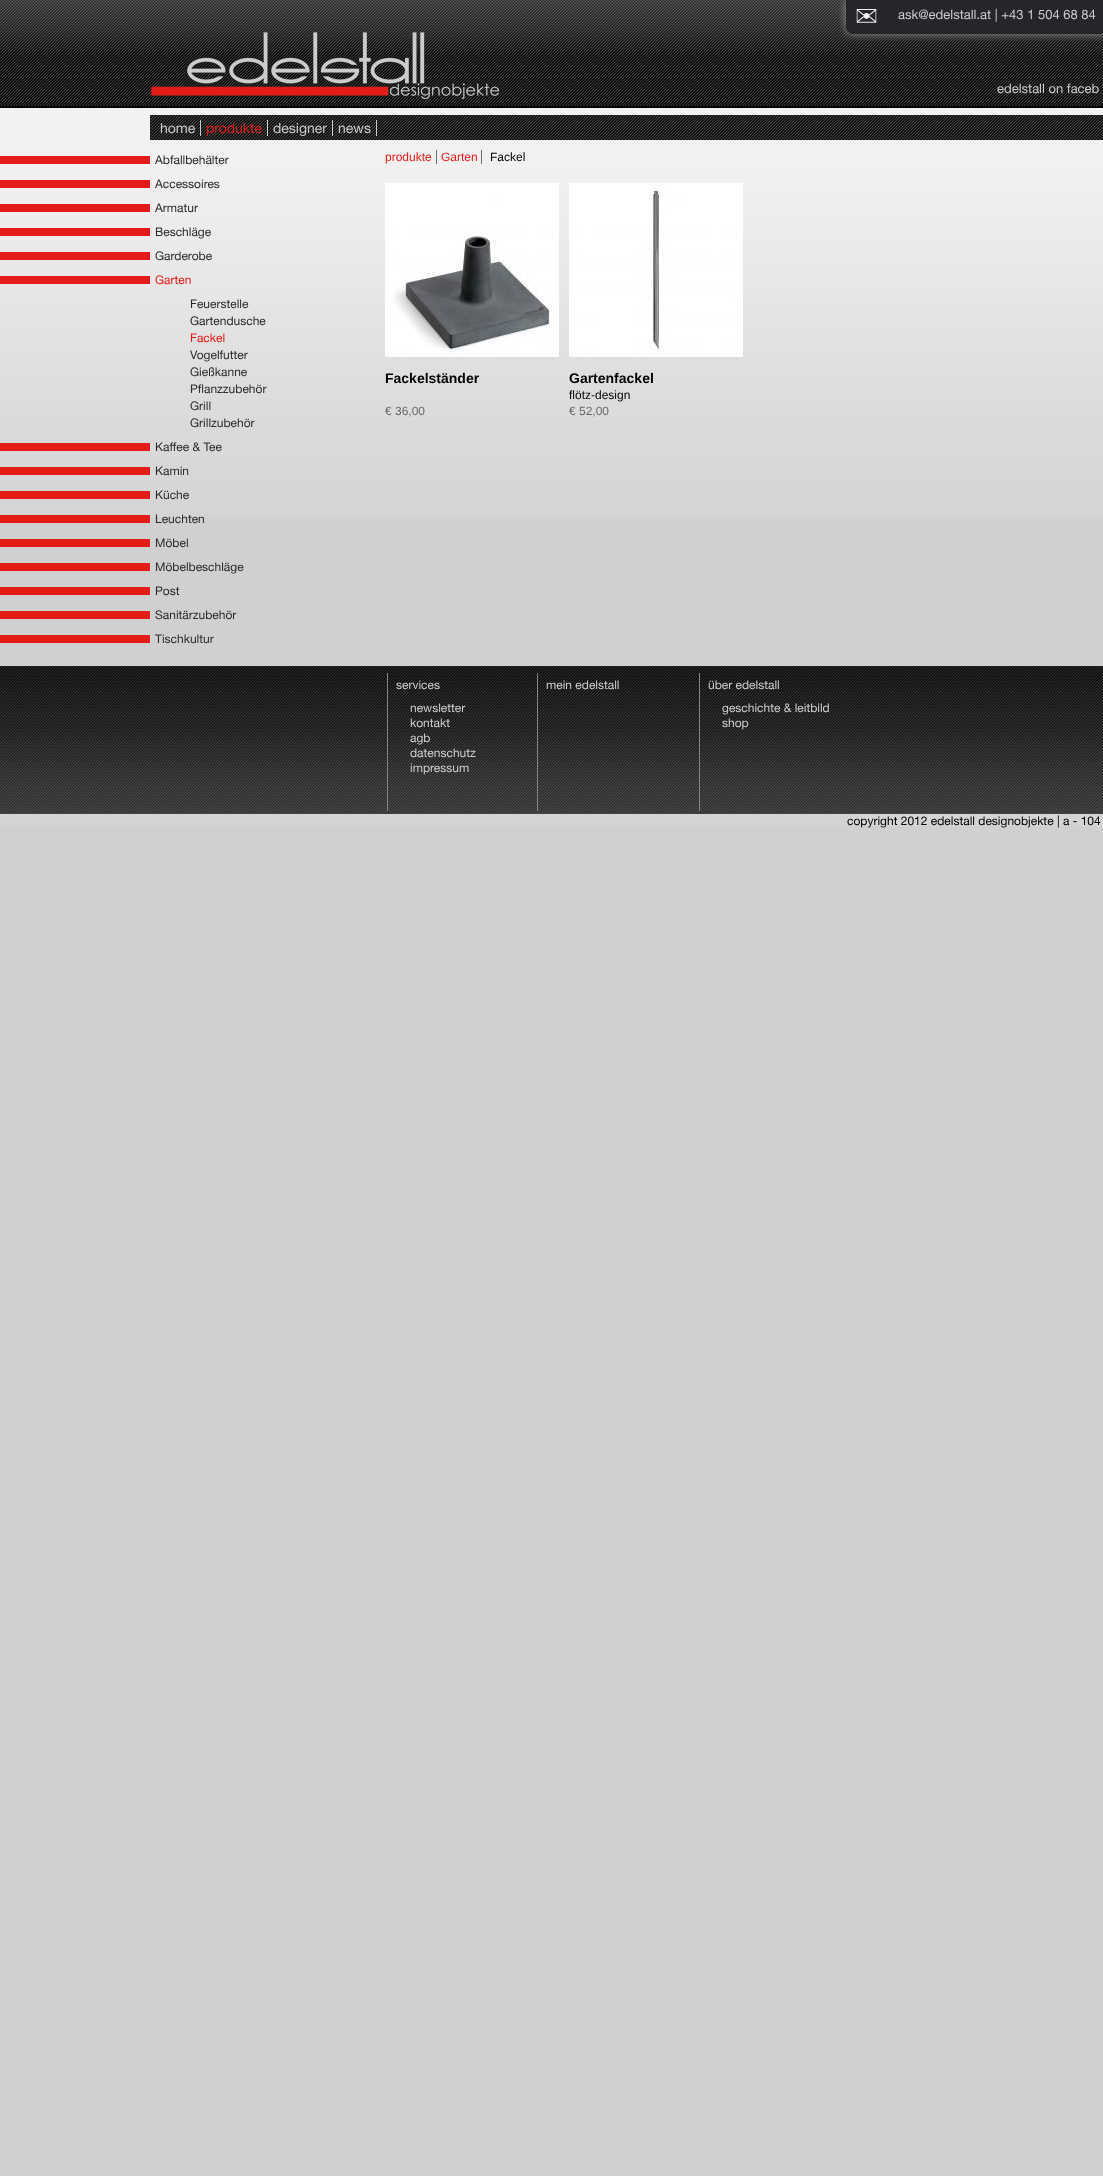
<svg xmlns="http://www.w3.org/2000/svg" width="1103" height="2176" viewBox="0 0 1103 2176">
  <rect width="100%" height="100%" fill="#d0d0d0"/>
  <image x="0" y="108" width="1103" height="409" href="img1.png"/>
  <image x="0" y="0" width="1103" height="108" href="img2.png"/>
  <image x="151" y="32" width="348" height="67" href="img3.png"/>
  <image x="839" y="0" width="264" height="41" href="img4.png"/>
  <text x="898" y="19" font-family="Helvetica Neue" font-size="13" fill="#cccccb">ask@edelstall.at | +43 1 504 68 84</text>
  <text x="997" y="93" font-family="Helvetica Neue" font-size="13" fill="#cccccb">edelstall on faceb</text>
  <image x="150" y="115" width="953" height="25" href="img5.png"/>
  <rect x="200" y="120" width="1" height="16" fill="#ccccca"/>
  <text x="160" y="133" font-family="Helvetica Neue" font-size="14" fill="#cccccb">home</text>
  <rect x="267" y="120" width="1" height="16" fill="#ccccca"/>
  <text x="206" y="133" font-family="Helvetica Neue" font-size="14" fill="#e31c18">produkte</text>
  <rect x="332" y="120" width="1" height="16" fill="#ccccca"/>
  <text x="273" y="133" font-family="Helvetica Neue" font-size="14" fill="#cccccb">designer</text>
  <rect x="376" y="120" width="1" height="16" fill="#ccccca"/>
  <text x="338" y="133" font-family="Helvetica Neue" font-size="14" fill="#cccccb">news</text>
  <rect x="0" y="156" width="150" height="8" fill="#e31c17"/>
  <text x="155" y="164" font-family="Helvetica Neue" font-size="12" fill="#2d2c2b">Abfallbehälter</text>
  <rect x="0" y="180" width="150" height="8" fill="#e31c17"/>
  <text x="155" y="188" font-family="Helvetica Neue" font-size="12" fill="#2d2c2b">Accessoires</text>
  <rect x="0" y="204" width="150" height="8" fill="#e31c17"/>
  <text x="155" y="212" font-family="Helvetica Neue" font-size="12" fill="#2d2c2b">Armatur</text>
  <rect x="0" y="228" width="150" height="8" fill="#e31c17"/>
  <text x="155" y="236" font-family="Helvetica Neue" font-size="12" fill="#2d2c2b">Beschläge</text>
  <rect x="0" y="252" width="150" height="8" fill="#e31c17"/>
  <text x="155" y="260" font-family="Helvetica Neue" font-size="12" fill="#2d2c2b">Garderobe</text>
  <rect x="0" y="276" width="150" height="8" fill="#e31c17"/>
  <text x="155" y="284" font-family="Helvetica Neue" font-size="12" fill="#e31c18">Garten</text>
  <text x="190" y="308" font-family="Helvetica Neue" font-size="12" fill="#2d2c2b">Feuerstelle</text>
  <text x="190" y="325" font-family="Helvetica Neue" font-size="12" fill="#2d2c2b">Gartendusche</text>
  <text x="190" y="342" font-family="Helvetica Neue" font-size="12" fill="#e31c18">Fackel</text>
  <text x="190" y="359" font-family="Helvetica Neue" font-size="12" fill="#2d2c2b">Vogelfutter</text>
  <text x="190" y="376" font-family="Helvetica Neue" font-size="12" fill="#2d2c2b">Gießkanne</text>
  <text x="190" y="393" font-family="Helvetica Neue" font-size="12" fill="#2d2c2b">Pflanzzubehör</text>
  <text x="190" y="410" font-family="Helvetica Neue" font-size="12" fill="#2d2c2b">Grill</text>
  <text x="190" y="427" font-family="Helvetica Neue" font-size="12" fill="#2d2c2b">Grillzubehör</text>
  <rect x="0" y="443" width="150" height="8" fill="#e31c17"/>
  <text x="155" y="451" font-family="Helvetica Neue" font-size="12" fill="#2d2c2b">Kaffee &amp; Tee</text>
  <rect x="0" y="467" width="150" height="8" fill="#e31c17"/>
  <text x="155" y="475" font-family="Helvetica Neue" font-size="12" fill="#2d2c2b">Kamin</text>
  <rect x="0" y="491" width="150" height="8" fill="#e31c17"/>
  <text x="155" y="499" font-family="Helvetica Neue" font-size="12" fill="#2d2c2b">Küche</text>
  <rect x="0" y="515" width="150" height="8" fill="#e31c17"/>
  <text x="155" y="523" font-family="Helvetica Neue" font-size="12" fill="#2d2c2b">Leuchten</text>
  <rect x="0" y="539" width="150" height="8" fill="#e31c17"/>
  <text x="155" y="547" font-family="Helvetica Neue" font-size="12" fill="#2d2c2b">Möbel</text>
  <rect x="0" y="563" width="150" height="8" fill="#e31c17"/>
  <text x="155" y="571" font-family="Helvetica Neue" font-size="12" fill="#2d2c2b">Möbelbeschläge</text>
  <rect x="0" y="587" width="150" height="8" fill="#e31c17"/>
  <text x="155" y="595" font-family="Helvetica Neue" font-size="12" fill="#2d2c2b">Post</text>
  <rect x="0" y="611" width="150" height="8" fill="#e31c17"/>
  <text x="155" y="619" font-family="Helvetica Neue" font-size="12" fill="#2d2c2b">Sanitärzubehör</text>
  <rect x="0" y="635" width="150" height="8" fill="#e31c17"/>
  <text x="155" y="643" font-family="Helvetica Neue" font-size="12" fill="#2d2c2b">Tischkultur</text>
  <text x="385" y="161" font-family="Liberation Sans" font-size="12" fill="#e31c18">produkte</text>
  <rect x="436" y="150" width="1" height="14" fill="#6e6e6e"/>
  <text x="441" y="161" font-family="Liberation Sans" font-size="12" fill="#e31c18">Garten</text>
  <rect x="481" y="150" width="1" height="14" fill="#6e6e6e"/>
  <text x="490" y="161" font-family="Liberation Sans" font-size="12" fill="#000000">Fackel</text>
  <image x="385" y="183" width="174" height="174" href="img6.png"/>
  <text x="385" y="383" font-family="Liberation Sans" font-size="14" font-weight="bold" fill="#000000">Fackelständer</text>
  <text x="385" y="415" font-family="Liberation Sans" font-size="12" fill="#676565">€ 36,00</text>
  <image x="569" y="183" width="174" height="174" href="img7.png"/>
  <text x="569" y="383" font-family="Liberation Sans" font-size="14" font-weight="bold" fill="#000000">Gartenfackel</text>
  <text x="569" y="399" font-family="Liberation Sans" font-size="12" fill="#000000">flötz-design</text>
  <text x="569" y="415" font-family="Liberation Sans" font-size="12" fill="#676565">€ 52,00</text>
  <image x="0" y="666" width="1103" height="160" href="img8.png"/>
  <rect x="387" y="673" width="1" height="138" fill="#868585"/>
  <text x="396" y="689" font-family="Helvetica Neue" font-size="12" fill="#cccccb">services</text>
  <text x="410" y="712" font-family="Helvetica Neue" font-size="12" fill="#cccccb">newsletter</text>
  <text x="410" y="727" font-family="Helvetica Neue" font-size="12" fill="#cccccb">kontakt</text>
  <text x="410" y="742" font-family="Helvetica Neue" font-size="12" fill="#cccccb">agb</text>
  <text x="410" y="757" font-family="Helvetica Neue" font-size="12" fill="#cccccb">datenschutz</text>
  <text x="410" y="772" font-family="Helvetica Neue" font-size="12" fill="#cccccb">impressum</text>
  <rect x="537" y="673" width="1" height="138" fill="#868585"/>
  <text x="546" y="689" font-family="Helvetica Neue" font-size="12" fill="#cccccb">mein edelstall</text>
  <rect x="699" y="673" width="1" height="138" fill="#868585"/>
  <text x="708" y="689" font-family="Helvetica Neue" font-size="12" fill="#cccccb">über edelstall</text>
  <text x="722" y="712" font-family="Helvetica Neue" font-size="12" fill="#cccccb">geschichte &amp; leitbild</text>
  <text x="722" y="727" font-family="Helvetica Neue" font-size="12" fill="#cccccb">shop</text>
  <text x="847" y="825" font-family="Helvetica Neue" font-size="12" fill="#000000">copyright 2012 edelstall designobjekte | a - 104</text>
</svg>
